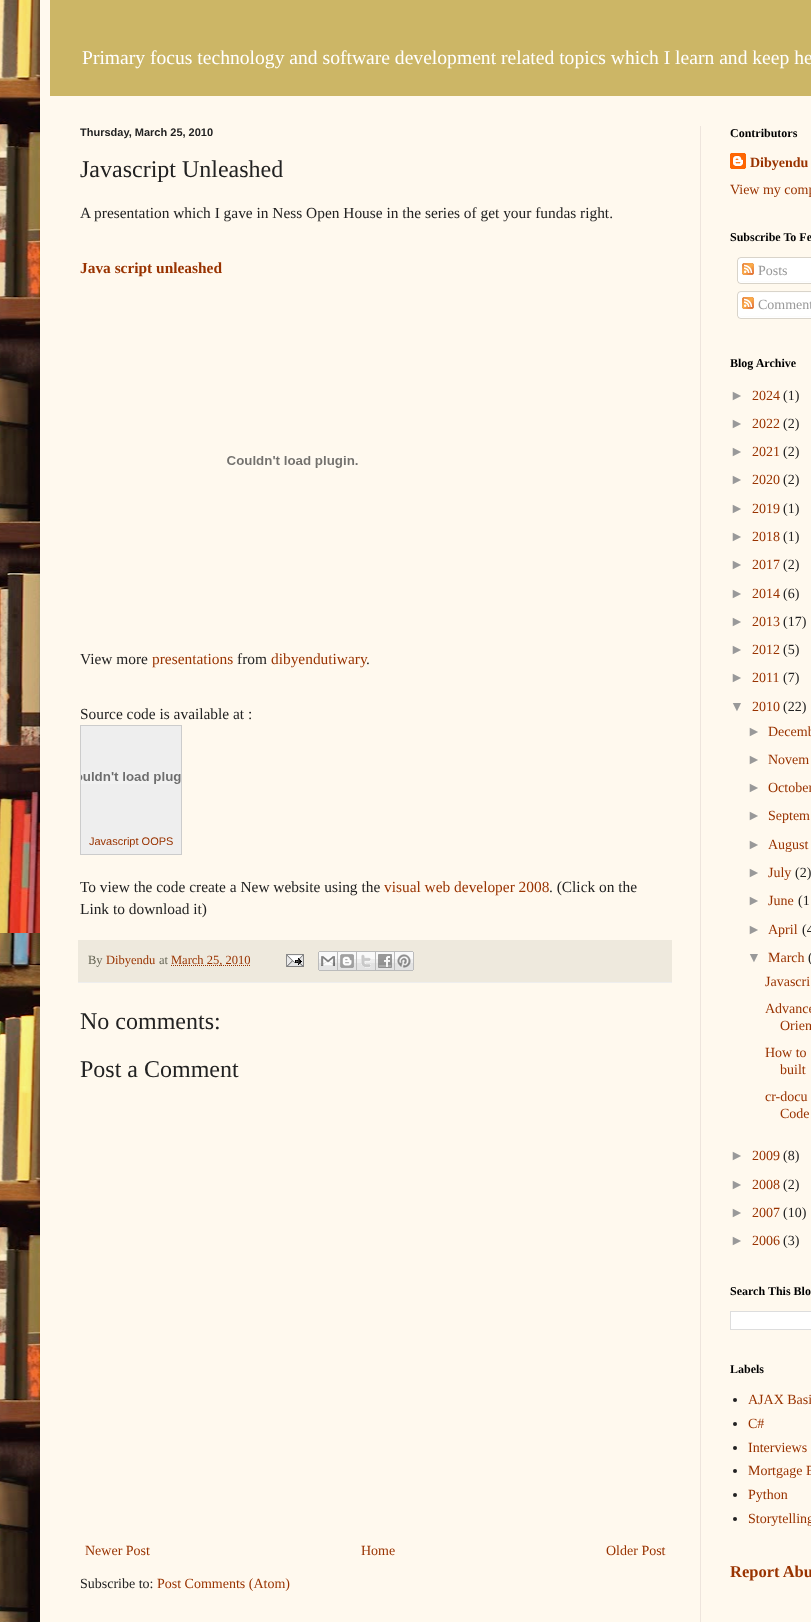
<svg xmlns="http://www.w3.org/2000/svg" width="811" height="1622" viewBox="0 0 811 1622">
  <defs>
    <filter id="blur1" x="-50%" y="-200%" width="200%" height="500%"><feGaussianBlur stdDeviation="20"/></filter>
  </defs>
  <rect width="100%" height="100%" fill="#ffffff"/>
  <image x="0" y="0" width="40" height="1622" href="img1.png"/>
  <rect x="40" y="-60" width="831" height="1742" fill="#000000" fill-opacity="0.15" filter="url(#blur1)"/>
  <rect x="40" y="0" width="771" height="1622" fill="#fff9ee"/>
  <rect x="50" y="0" width="761" height="96" fill="#ccb666"/>
  <text x="82" y="64" font-family="Liberation Serif" font-size="19.6" fill="#ffffff">Primary focus technology and software development related topics which I learn and keep he</text>
  <rect x="700" y="126" width="1" height="1496" fill="#eee5dd"/>
  <text x="80" y="136" font-family="Liberation Sans" font-size="11" font-weight="bold" fill="#222222">Thursday, March 25, 2010</text>
  <text x="80" y="177" font-family="Liberation Serif" font-size="24" fill="#222222">Javascript Unleashed</text>
  <text x="80" y="218" font-family="Liberation Serif" font-size="15.4" fill="#222222">A presentation which I gave in Ness Open House in the series of get your fundas right.</text>
  <text x="80" y="273" font-family="Liberation Serif" font-size="15.4" font-weight="bold" fill="#993300">Java script unleashed</text>
  <image x="227" y="456" width="131" height="12" href="img2.png"/>
  <text x="80" y="664" font-family="Liberation Serif" font-size="15.4" fill="#222222">View more</text>
  <text x="152" y="664" font-family="Liberation Serif" font-size="15.4" fill="#993300">presentations</text>
  <text x="237" y="664" font-family="Liberation Serif" font-size="15.4" fill="#222222">from</text>
  <text x="271" y="664" font-family="Liberation Serif" font-size="15.4" fill="#993300">dibyendutiwary</text>
  <text x="366" y="664" font-family="Liberation Serif" font-size="15.4" fill="#222222">.</text>
  <text x="80" y="719" font-family="Liberation Serif" font-size="15.4" fill="#222222">Source code is available at :</text>
  <rect x="80.5" y="725.5" width="101" height="129" fill="#eeeeee" stroke="#cccccc"/>
  <image x="81" y="772" width="100" height="12" href="img3.png"/>
  <text x="89" y="845" font-family="Liberation Sans" font-size="11" fill="#993300">Javascript OOPS</text>
  <text x="80" y="892" font-family="Liberation Serif" font-size="15.4" fill="#222222">To view the code create a New website using the</text>
  <text x="384" y="892" font-family="Liberation Serif" font-size="15.4" fill="#993300">visual web developer 2008</text>
  <text x="549" y="892" font-family="Liberation Serif" font-size="15.4" fill="#222222">. (Click on the</text>
  <text x="80" y="914" font-family="Liberation Serif" font-size="15.4" fill="#222222">Link to download it)</text>
  <rect x="78" y="940" width="594" height="42" fill="#eee9dd"/>
  <rect x="78" y="982" width="594" height="1" fill="#eeeeee"/>
  <text x="88" y="964" font-family="Liberation Serif" font-size="12.5" fill="#666555">By</text>
  <text x="106" y="964" font-family="Liberation Serif" font-size="12.5" fill="#993300">Dibyendu</text>
  <text x="159" y="964" font-family="Liberation Serif" font-size="12.5" fill="#666555">at</text>
  <path d="M171 965.5H251" fill="none" stroke="#993300" stroke-dasharray="1 1"/>
  <text x="171" y="964" font-family="Liberation Serif" font-size="12.5" fill="#993300">March 25, 2010</text>
  <image x="286" y="954" width="18" height="13" href="img4.png"/>
  <image x="318" y="951" width="20" height="20" href="img5.png"/>
  <image x="338" y="951" width="19" height="20" href="img6.png"/>
  <image x="357" y="951" width="19" height="20" href="img7.png"/>
  <image x="376" y="951" width="19" height="20" href="img8.png"/>
  <image x="395" y="951" width="19" height="20" href="img9.png"/>
  <text x="80" y="1029" font-family="Liberation Serif" font-size="24" fill="#222222">No comments:</text>
  <text x="80" y="1077" font-family="Liberation Serif" font-size="24" fill="#222222">Post a Comment</text>
  <text x="85" y="1555" font-family="Liberation Serif" font-size="14" fill="#993300">Newer Post</text>
  <text x="361" y="1555" font-family="Liberation Serif" font-size="14" fill="#993300">Home</text>
  <text x="606" y="1555" font-family="Liberation Serif" font-size="14" fill="#993300">Older Post</text>
  <text x="80" y="1588" font-family="Liberation Serif" font-size="14" fill="#222222">Subscribe to:</text>
  <text x="157" y="1588" font-family="Liberation Serif" font-size="14" fill="#993300">Post Comments (Atom)</text>
  <text x="730" y="137" font-family="Liberation Serif" font-size="12" font-weight="bold" fill="#000000">Contributors</text>
  <image x="730" y="153" width="16" height="16" href="img10.png"/>
  <text x="750" y="167" font-family="Liberation Serif" font-size="14" font-weight="bold" fill="#993300">Dibyendu</text>
  <text x="730" y="194" font-family="Liberation Serif" font-size="14" fill="#993300">View my comp</text>
  <text x="730" y="241" font-family="Liberation Serif" font-size="12" font-weight="bold" fill="#000000">Subscribe To Fe</text>
  <image x="737" y="257" width="74" height="24" href="img11.png"/>
  <image x="742" y="263" width="12" height="12" href="img12.png"/>
  <text x="758" y="275" font-family="Liberation Serif" font-size="14" fill="#999999">Posts</text>
  <image x="737" y="281" width="74" height="3" href="img13.png"/>
  <image x="737" y="291" width="74" height="25" href="img14.png"/>
  <image x="742" y="297" width="12" height="12" href="img12.png"/>
  <text x="758" y="309" font-family="Liberation Serif" font-size="14" fill="#999999">Comment</text>
  <image x="737" y="316" width="74" height="3" href="img13.png"/>
  <text x="730" y="367" font-family="Liberation Serif" font-size="12" font-weight="bold" fill="#000000">Blog Archive</text>
  <text x="730" y="400" font-family="Liberation Sans" font-size="14" fill="#999999">►</text>
  <text x="752" y="400" font-family="Liberation Serif" font-size="14" fill="#993300">2024</text>
  <text x="783" y="400" font-family="Liberation Serif" font-size="14" fill="#222222">(1)</text>
  <text x="730" y="428" font-family="Liberation Sans" font-size="14" fill="#999999">►</text>
  <text x="752" y="428" font-family="Liberation Serif" font-size="14" fill="#993300">2022</text>
  <text x="783" y="428" font-family="Liberation Serif" font-size="14" fill="#222222">(2)</text>
  <text x="730" y="456" font-family="Liberation Sans" font-size="14" fill="#999999">►</text>
  <text x="752" y="456" font-family="Liberation Serif" font-size="14" fill="#993300">2021</text>
  <text x="783" y="456" font-family="Liberation Serif" font-size="14" fill="#222222">(2)</text>
  <text x="730" y="484" font-family="Liberation Sans" font-size="14" fill="#999999">►</text>
  <text x="752" y="484" font-family="Liberation Serif" font-size="14" fill="#993300">2020</text>
  <text x="783" y="484" font-family="Liberation Serif" font-size="14" fill="#222222">(2)</text>
  <text x="730" y="513" font-family="Liberation Sans" font-size="14" fill="#999999">►</text>
  <text x="752" y="513" font-family="Liberation Serif" font-size="14" fill="#993300">2019</text>
  <text x="783" y="513" font-family="Liberation Serif" font-size="14" fill="#222222">(1)</text>
  <text x="730" y="541" font-family="Liberation Sans" font-size="14" fill="#999999">►</text>
  <text x="752" y="541" font-family="Liberation Serif" font-size="14" fill="#993300">2018</text>
  <text x="783" y="541" font-family="Liberation Serif" font-size="14" fill="#222222">(1)</text>
  <text x="730" y="569" font-family="Liberation Sans" font-size="14" fill="#999999">►</text>
  <text x="752" y="569" font-family="Liberation Serif" font-size="14" fill="#993300">2017</text>
  <text x="783" y="569" font-family="Liberation Serif" font-size="14" fill="#222222">(2)</text>
  <text x="730" y="598" font-family="Liberation Sans" font-size="14" fill="#999999">►</text>
  <text x="752" y="598" font-family="Liberation Serif" font-size="14" fill="#993300">2014</text>
  <text x="783" y="598" font-family="Liberation Serif" font-size="14" fill="#222222">(6)</text>
  <text x="730" y="626" font-family="Liberation Sans" font-size="14" fill="#999999">►</text>
  <text x="752" y="626" font-family="Liberation Serif" font-size="14" fill="#993300">2013</text>
  <text x="783" y="626" font-family="Liberation Serif" font-size="14" fill="#222222">(17)</text>
  <text x="730" y="654" font-family="Liberation Sans" font-size="14" fill="#999999">►</text>
  <text x="752" y="654" font-family="Liberation Serif" font-size="14" fill="#993300">2012</text>
  <text x="783" y="654" font-family="Liberation Serif" font-size="14" fill="#222222">(5)</text>
  <text x="730" y="682" font-family="Liberation Sans" font-size="14" fill="#999999">►</text>
  <text x="752" y="682" font-family="Liberation Serif" font-size="14" fill="#993300">2011</text>
  <text x="783" y="682" font-family="Liberation Serif" font-size="14" fill="#222222">(7)</text>
  <text x="730" y="711" font-family="Liberation Sans" font-size="14" fill="#999999">▼</text>
  <text x="752" y="711" font-family="Liberation Serif" font-size="14" fill="#993300">2010</text>
  <text x="783" y="711" font-family="Liberation Serif" font-size="14" fill="#222222">(22)</text>
  <text x="747" y="736" font-family="Liberation Sans" font-size="14" fill="#999999">►</text>
  <text x="768" y="736" font-family="Liberation Serif" font-size="14" fill="#993300">Decemb</text>
  <text x="747" y="764" font-family="Liberation Sans" font-size="14" fill="#999999">►</text>
  <text x="768" y="764" font-family="Liberation Serif" font-size="14" fill="#993300">Novem</text>
  <text x="747" y="792" font-family="Liberation Sans" font-size="14" fill="#999999">►</text>
  <text x="768" y="792" font-family="Liberation Serif" font-size="14" fill="#993300">October</text>
  <text x="747" y="820" font-family="Liberation Sans" font-size="14" fill="#999999">►</text>
  <text x="768" y="820" font-family="Liberation Serif" font-size="14" fill="#993300">Septem</text>
  <text x="747" y="849" font-family="Liberation Sans" font-size="14" fill="#999999">►</text>
  <text x="768" y="849" font-family="Liberation Serif" font-size="14" fill="#993300">August</text>
  <text x="747" y="877" font-family="Liberation Sans" font-size="14" fill="#999999">►</text>
  <text x="768" y="877" font-family="Liberation Serif" font-size="14" fill="#993300">July</text>
  <text x="795" y="877" font-family="Liberation Serif" font-size="14" fill="#222222">(2)</text>
  <text x="747" y="905" font-family="Liberation Sans" font-size="14" fill="#999999">►</text>
  <text x="768" y="905" font-family="Liberation Serif" font-size="14" fill="#993300">June</text>
  <text x="798" y="905" font-family="Liberation Serif" font-size="14" fill="#222222">(1</text>
  <text x="747" y="934" font-family="Liberation Sans" font-size="14" fill="#999999">►</text>
  <text x="768" y="934" font-family="Liberation Serif" font-size="14" fill="#993300">April</text>
  <text x="802" y="934" font-family="Liberation Serif" font-size="14" fill="#222222">(4</text>
  <text x="747" y="962" font-family="Liberation Sans" font-size="14" fill="#999999">▼</text>
  <text x="768" y="962" font-family="Liberation Serif" font-size="14" fill="#993300">March</text>
  <text x="808" y="962" font-family="Liberation Serif" font-size="14" fill="#222222">(</text>
  <text x="765" y="986" font-family="Liberation Serif" font-size="14" fill="#993300">Javascri</text>
  <text x="765" y="1013" font-family="Liberation Serif" font-size="14" fill="#993300">Advance</text>
  <text x="780" y="1030" font-family="Liberation Serif" font-size="14" fill="#993300">Orien</text>
  <text x="765" y="1057" font-family="Liberation Serif" font-size="14" fill="#993300">How to</text>
  <text x="780" y="1074" font-family="Liberation Serif" font-size="14" fill="#993300">built</text>
  <text x="765" y="1101" font-family="Liberation Serif" font-size="14" fill="#993300">cr-docu</text>
  <text x="780" y="1118" font-family="Liberation Serif" font-size="14" fill="#993300">Code</text>
  <text x="730" y="1160" font-family="Liberation Sans" font-size="14" fill="#999999">►</text>
  <text x="752" y="1160" font-family="Liberation Serif" font-size="14" fill="#993300">2009</text>
  <text x="783" y="1160" font-family="Liberation Serif" font-size="14" fill="#222222">(8)</text>
  <text x="730" y="1189" font-family="Liberation Sans" font-size="14" fill="#999999">►</text>
  <text x="752" y="1189" font-family="Liberation Serif" font-size="14" fill="#993300">2008</text>
  <text x="783" y="1189" font-family="Liberation Serif" font-size="14" fill="#222222">(2)</text>
  <text x="730" y="1217" font-family="Liberation Sans" font-size="14" fill="#999999">►</text>
  <text x="752" y="1217" font-family="Liberation Serif" font-size="14" fill="#993300">2007</text>
  <text x="783" y="1217" font-family="Liberation Serif" font-size="14" fill="#222222">(10)</text>
  <text x="730" y="1245" font-family="Liberation Sans" font-size="14" fill="#999999">►</text>
  <text x="752" y="1245" font-family="Liberation Serif" font-size="14" fill="#993300">2006</text>
  <text x="783" y="1245" font-family="Liberation Serif" font-size="14" fill="#222222">(3)</text>
  <text x="730" y="1295" font-family="Liberation Serif" font-size="12" font-weight="bold" fill="#000000">Search This Blo</text>
  <rect x="730.5" y="1311.5" width="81" height="18" fill="#ffffff" stroke="#dddddd"/>
  <text x="730" y="1373" font-family="Liberation Serif" font-size="12" font-weight="bold" fill="#000000">Labels</text>
  <circle cx="735" cy="1400" r="2" fill="#222222"/>
  <text x="748" y="1404" font-family="Liberation Serif" font-size="14" fill="#993300">AJAX Basi</text>
  <circle cx="735" cy="1424" r="2" fill="#222222"/>
  <text x="748" y="1428" font-family="Liberation Serif" font-size="14" fill="#993300">C#</text>
  <circle cx="735" cy="1448" r="2" fill="#222222"/>
  <text x="748" y="1452" font-family="Liberation Serif" font-size="14" fill="#993300">Interviews</text>
  <circle cx="735" cy="1471" r="2" fill="#222222"/>
  <text x="748" y="1475" font-family="Liberation Serif" font-size="14" fill="#993300">Mortgage B</text>
  <circle cx="735" cy="1495" r="2" fill="#222222"/>
  <text x="748" y="1499" font-family="Liberation Serif" font-size="14" fill="#993300">Python</text>
  <circle cx="735" cy="1519" r="2" fill="#222222"/>
  <text x="748" y="1523" font-family="Liberation Serif" font-size="14" fill="#993300">Storytelling</text>
  <text x="730" y="1577" font-family="Liberation Serif" font-size="16.5" font-weight="bold" fill="#993300">Report Abu</text>
</svg>
